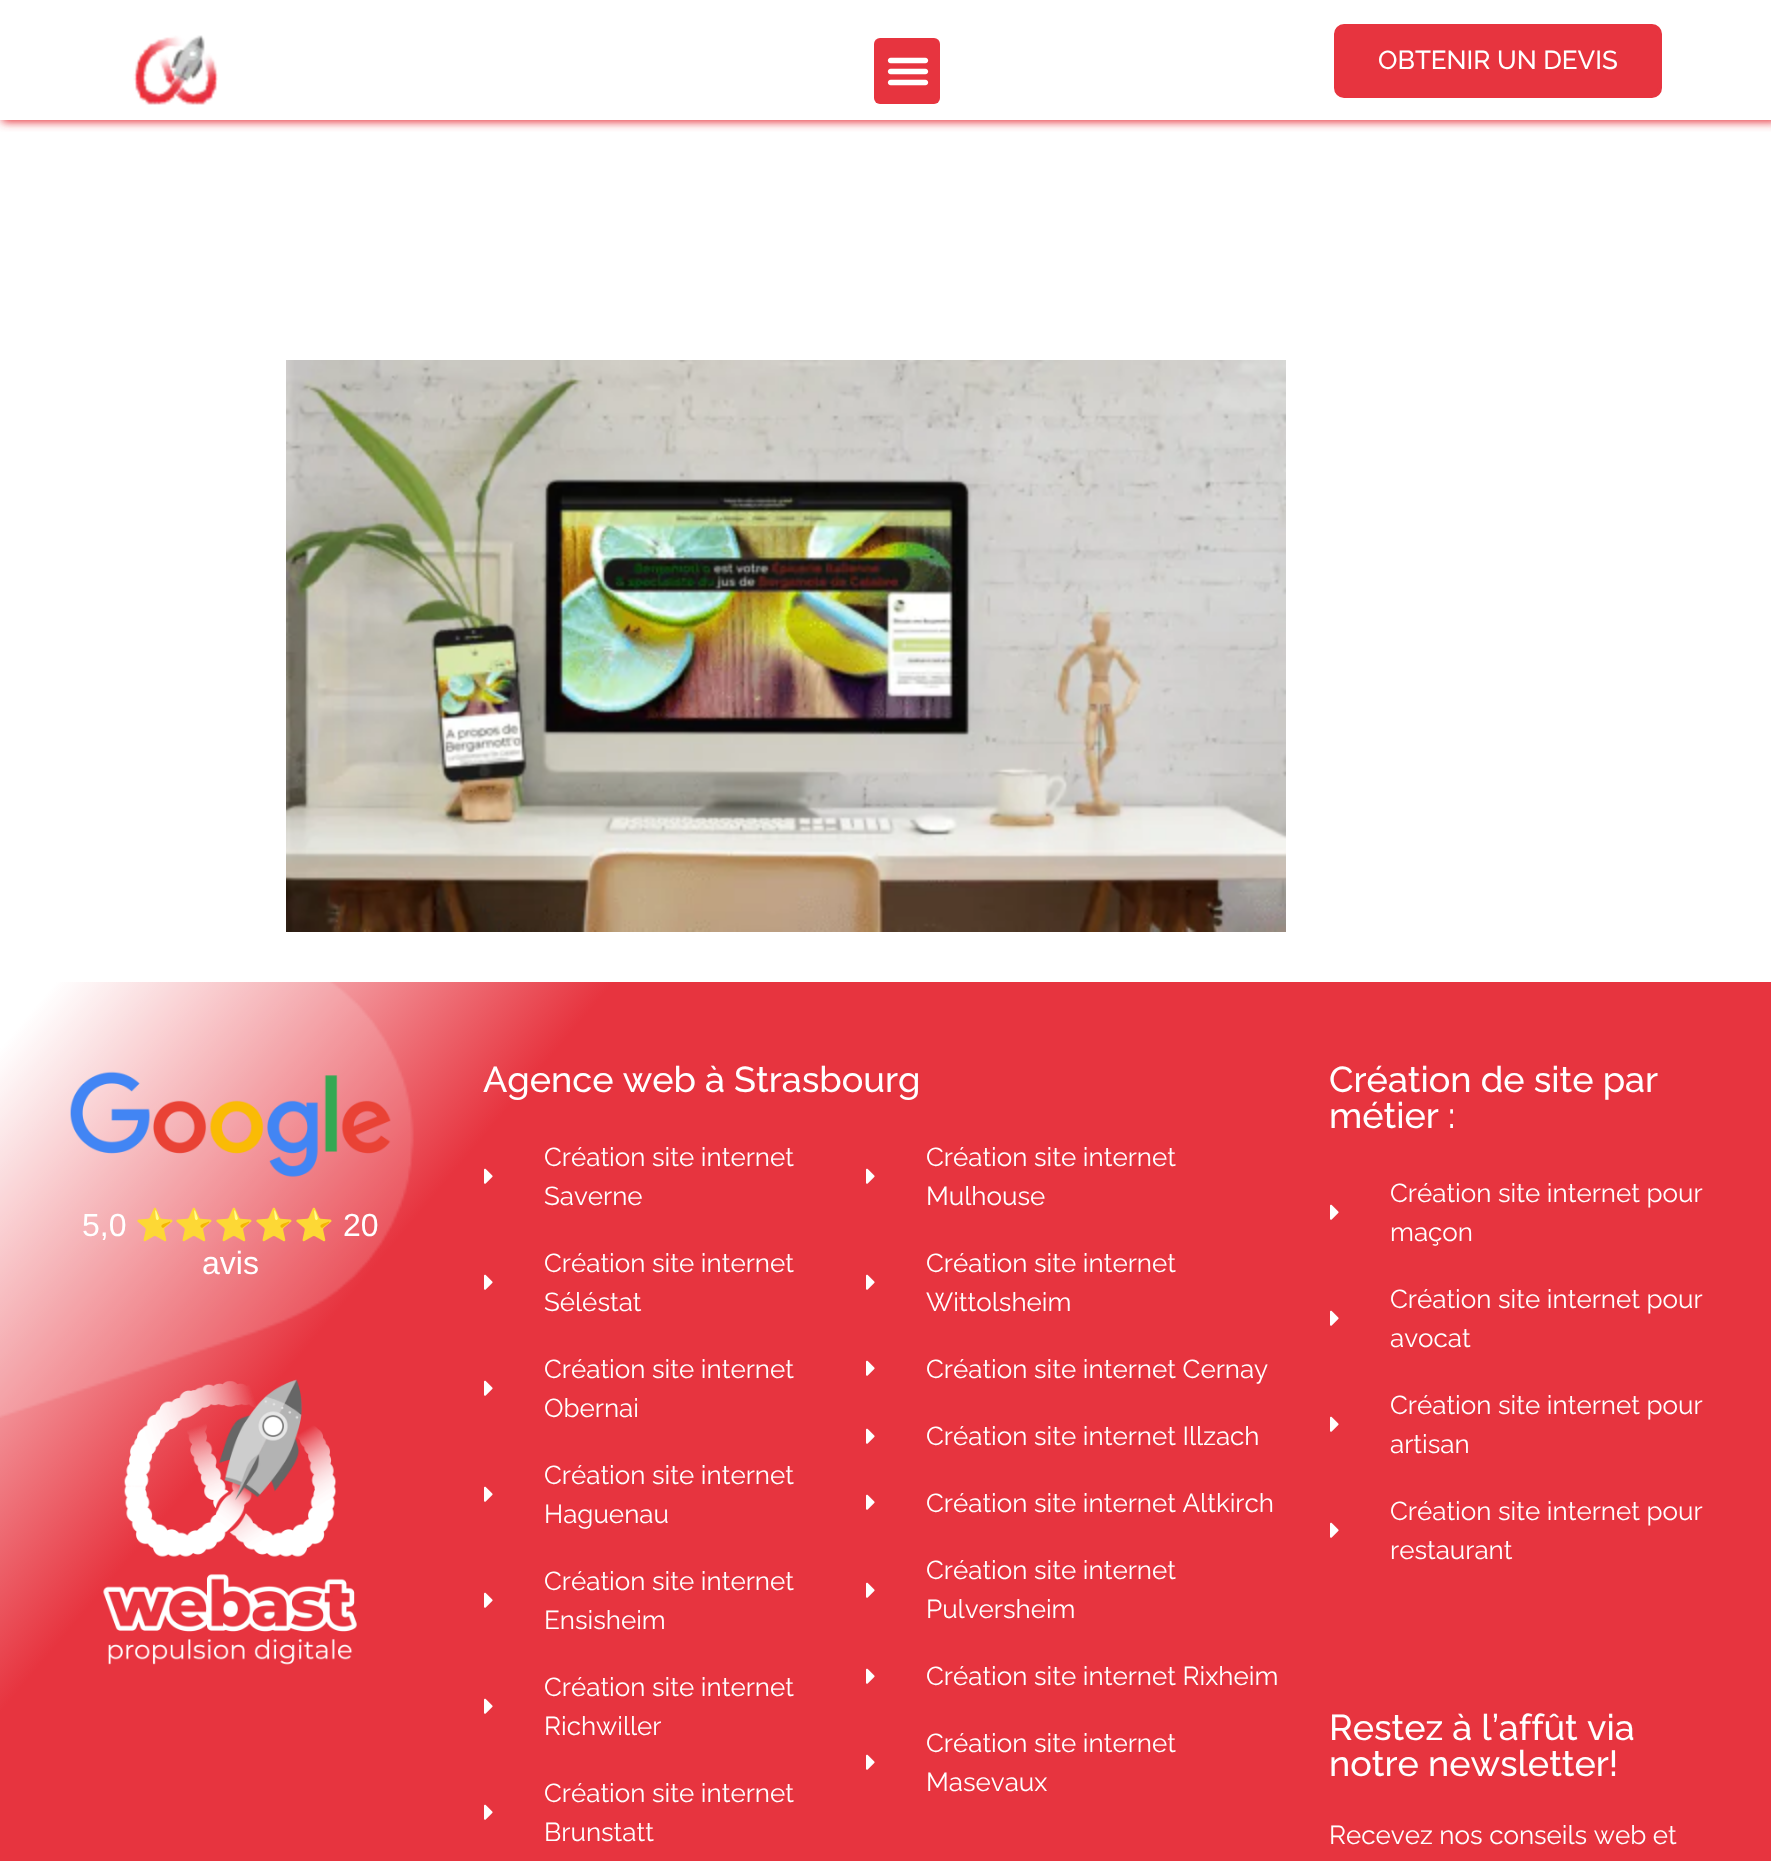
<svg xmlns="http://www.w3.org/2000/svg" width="1771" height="1861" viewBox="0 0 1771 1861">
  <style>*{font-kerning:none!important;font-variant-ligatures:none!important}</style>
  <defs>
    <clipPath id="clip1"><rect x="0" y="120" width="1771" height="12"/></clipPath>
    <filter id="blur1" x="-50%" y="-200%" width="200%" height="500%"><feGaussianBlur stdDeviation="5"/></filter>
    <linearGradient id="g1" gradientUnits="userSpaceOnUse" x1="68" y1="901" x2="1704" y2="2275"><stop offset="0.02" stop-color="#ffffff"/><stop offset="0.22" stop-color="#e7343f"/></linearGradient>
  </defs>
  <rect width="100%" height="100%" fill="#ffffff"/>
  <g clip-path="url(#clip1)">
    <rect x="2" y="-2" width="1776" height="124" fill="#e7343f" filter="url(#blur1)"/>
  </g>
  <image x="133" y="35" width="85" height="70" href="img1.png"/>
  <rect x="874" y="38" width="66" height="66" rx="6" fill="#e7343f"/>
  <image x="887" y="57" width="42" height="29" href="img2.png"/>
  <rect x="1336" y="26" width="324" height="70" rx="8" fill="#e7343f" stroke="#e7343f" stroke-width="4"/>
  <text x="1378" y="69" font-family="Raleway" font-size="26" font-weight="500" fill="#ffffff">OBTENIR UN DEVIS</text>
  <image x="286" y="360" width="1000" height="572" href="img3.png"/>
  <rect x="0" y="982" width="1771" height="879" fill="url(#g1)"/>
  <image x="0" y="982" width="414" height="436" href="img4.png"/>
  <image x="70" y="1071" width="321" height="106" href="img5.png"/>
  <text x="82" y="1236" font-family="Liberation Sans" font-size="32" fill="#ffffff">5,0</text>
  <text x="135" y="1236" font-family="Noto Color Emoji" font-size="32" fill="#ffffff">⭐⭐⭐⭐⭐</text>
  <text x="343" y="1236" font-family="Liberation Sans" font-size="32" fill="#ffffff">20</text>
  <text x="202" y="1274" font-family="Liberation Sans" font-size="32" fill="#ffffff">avis</text>
  <image x="103" y="1379" width="254" height="286" href="img6.png"/>
  <text x="483" y="1092" font-family="Raleway" font-size="36" font-weight="500" fill="#ffffff">Agence web à Strasbourg</text>
  <image x="484" y="1168" width="9" height="16" href="img7.png"/>
  <text x="544" y="1166" font-family="Raleway" font-size="26" fill="#ffffff">Création site internet</text>
  <text x="544" y="1205" font-family="Raleway" font-size="26" fill="#ffffff">Saverne</text>
  <image x="484" y="1274" width="9" height="16" href="img7.png"/>
  <text x="544" y="1272" font-family="Raleway" font-size="26" fill="#ffffff">Création site internet</text>
  <text x="544" y="1311" font-family="Raleway" font-size="26" fill="#ffffff">Séléstat</text>
  <image x="484" y="1380" width="9" height="16" href="img7.png"/>
  <text x="544" y="1378" font-family="Raleway" font-size="26" fill="#ffffff">Création site internet</text>
  <text x="544" y="1417" font-family="Raleway" font-size="26" fill="#ffffff">Obernai</text>
  <image x="484" y="1486" width="9" height="16" href="img7.png"/>
  <text x="544" y="1484" font-family="Raleway" font-size="26" fill="#ffffff">Création site internet</text>
  <text x="544" y="1523" font-family="Raleway" font-size="26" fill="#ffffff">Haguenau</text>
  <image x="484" y="1592" width="9" height="16" href="img7.png"/>
  <text x="544" y="1590" font-family="Raleway" font-size="26" fill="#ffffff">Création site internet</text>
  <text x="544" y="1629" font-family="Raleway" font-size="26" fill="#ffffff">Ensisheim</text>
  <image x="484" y="1698" width="9" height="16" href="img7.png"/>
  <text x="544" y="1696" font-family="Raleway" font-size="26" fill="#ffffff">Création site internet</text>
  <text x="544" y="1735" font-family="Raleway" font-size="26" fill="#ffffff">Richwiller</text>
  <image x="484" y="1804" width="9" height="16" href="img7.png"/>
  <text x="544" y="1802" font-family="Raleway" font-size="26" fill="#ffffff">Création site internet</text>
  <text x="544" y="1841" font-family="Raleway" font-size="26" fill="#ffffff">Brunstatt</text>
  <image x="866" y="1168" width="9" height="16" href="img7.png"/>
  <text x="926" y="1166" font-family="Raleway" font-size="26" fill="#ffffff">Création site internet</text>
  <text x="926" y="1205" font-family="Raleway" font-size="26" fill="#ffffff">Mulhouse</text>
  <image x="866" y="1274" width="9" height="16" href="img7.png"/>
  <text x="926" y="1272" font-family="Raleway" font-size="26" fill="#ffffff">Création site internet</text>
  <text x="926" y="1311" font-family="Raleway" font-size="26" fill="#ffffff">Wittolsheim</text>
  <image x="866" y="1360" width="9" height="16" href="img7.png"/>
  <text x="926" y="1378" font-family="Raleway" font-size="26" fill="#ffffff">Création site internet Cernay</text>
  <image x="866" y="1428" width="9" height="16" href="img7.png"/>
  <text x="926" y="1445" font-family="Raleway" font-size="26" fill="#ffffff">Création site internet Illzach</text>
  <image x="866" y="1494" width="9" height="16" href="img7.png"/>
  <text x="926" y="1512" font-family="Raleway" font-size="26" fill="#ffffff">Création site internet Altkirch</text>
  <image x="866" y="1582" width="9" height="16" href="img7.png"/>
  <text x="926" y="1579" font-family="Raleway" font-size="26" fill="#ffffff">Création site internet</text>
  <text x="926" y="1618" font-family="Raleway" font-size="26" fill="#ffffff">Pulversheim</text>
  <image x="866" y="1668" width="9" height="16" href="img7.png"/>
  <text x="926" y="1685" font-family="Raleway" font-size="26" fill="#ffffff">Création site internet Rixheim</text>
  <image x="866" y="1754" width="9" height="16" href="img7.png"/>
  <text x="926" y="1752" font-family="Raleway" font-size="26" fill="#ffffff">Création site internet</text>
  <text x="926" y="1791" font-family="Raleway" font-size="26" fill="#ffffff">Masevaux</text>
  <text x="1329" y="1092" font-family="Raleway" font-size="36" font-weight="500" fill="#ffffff">Création de site par</text>
  <text x="1329" y="1128" font-family="Raleway" font-size="36" font-weight="500" fill="#ffffff">métier :</text>
  <image x="1330" y="1204" width="9" height="16" href="img7.png"/>
  <text x="1390" y="1202" font-family="Raleway" font-size="26" fill="#ffffff">Création site internet pour</text>
  <text x="1390" y="1241" font-family="Raleway" font-size="26" fill="#ffffff">maçon</text>
  <image x="1330" y="1310" width="9" height="16" href="img7.png"/>
  <text x="1390" y="1308" font-family="Raleway" font-size="26" fill="#ffffff">Création site internet pour</text>
  <text x="1390" y="1347" font-family="Raleway" font-size="26" fill="#ffffff">avocat</text>
  <image x="1330" y="1416" width="9" height="16" href="img7.png"/>
  <text x="1390" y="1414" font-family="Raleway" font-size="26" fill="#ffffff">Création site internet pour</text>
  <text x="1390" y="1453" font-family="Raleway" font-size="26" fill="#ffffff">artisan</text>
  <image x="1330" y="1522" width="9" height="16" href="img7.png"/>
  <text x="1390" y="1520" font-family="Raleway" font-size="26" fill="#ffffff">Création site internet pour</text>
  <text x="1390" y="1559" font-family="Raleway" font-size="26" fill="#ffffff">restaurant</text>
  <text x="1329" y="1740" font-family="Raleway" font-size="36" font-weight="500" fill="#ffffff">Restez à l’affût</text>
  <text x="1587" y="1740" font-family="Raleway" font-size="36" font-weight="500" fill="#ffffff">via</text>
  <text x="1329" y="1776" font-family="Raleway" font-size="36" font-weight="500" fill="#ffffff">notre newsletter!</text>
  <text x="1329" y="1844" font-family="Raleway" font-size="26" fill="#ffffff">Recevez nos conseils web et</text>
</svg>
